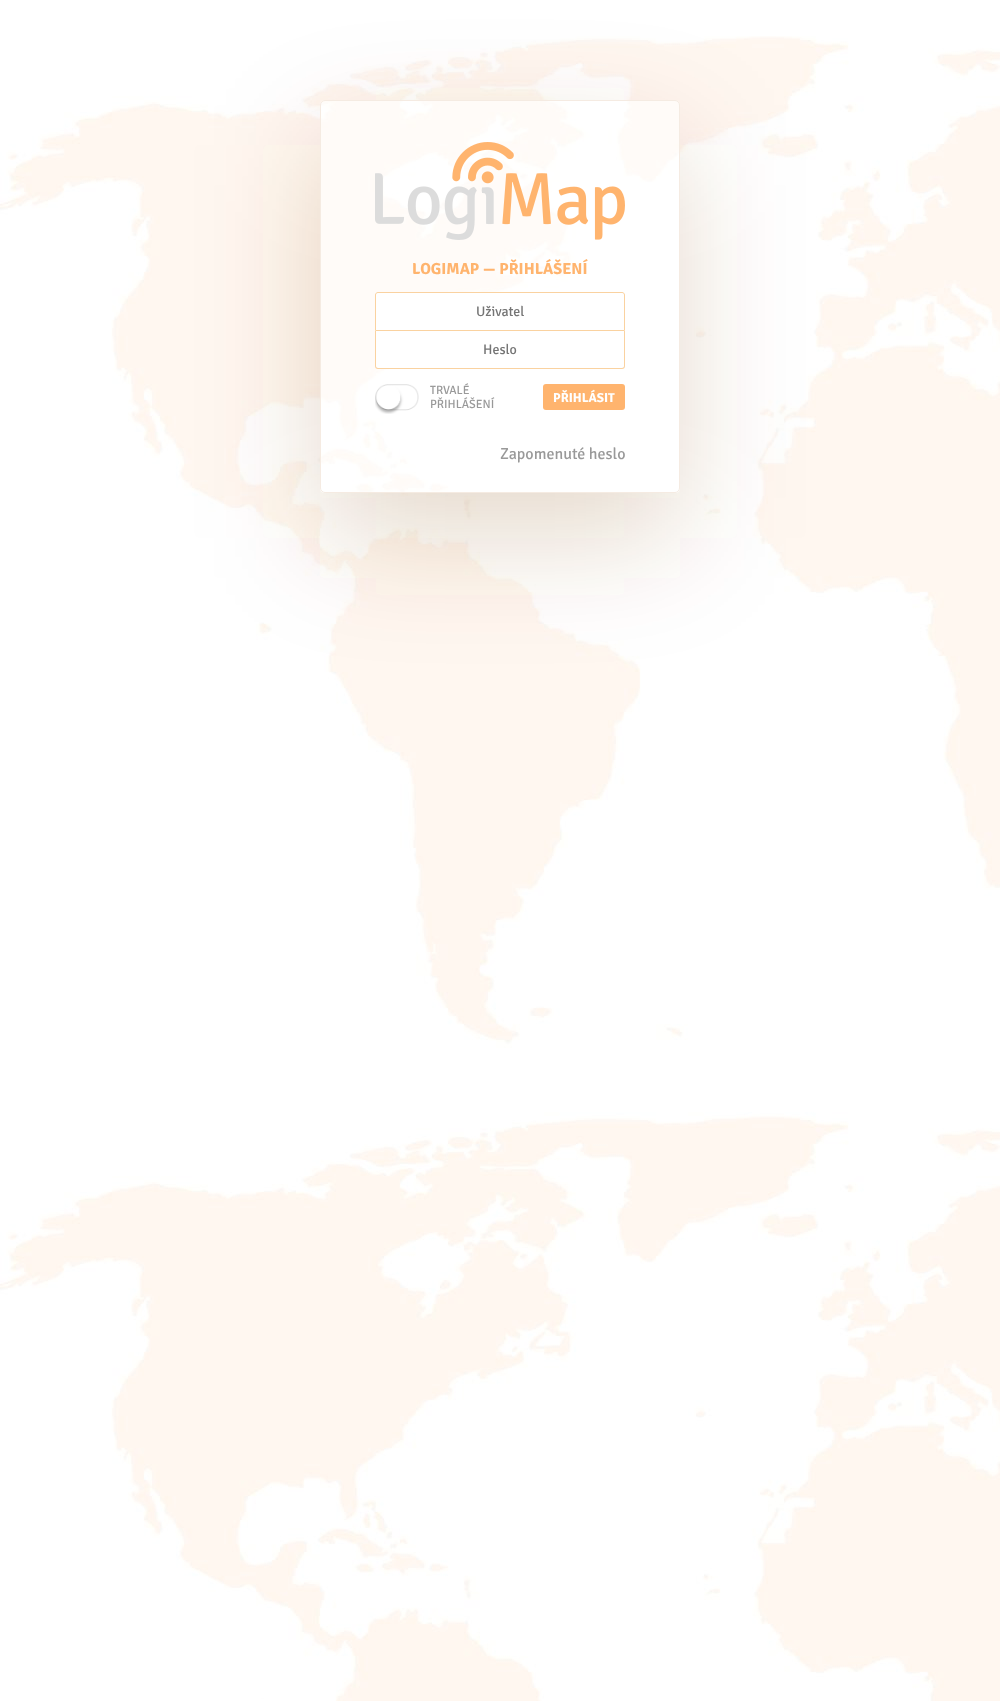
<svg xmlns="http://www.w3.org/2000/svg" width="1000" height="1701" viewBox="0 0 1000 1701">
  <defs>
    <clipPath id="clip1"><path d="M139 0H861V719H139ZM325 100H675C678 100 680 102 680 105V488C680 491 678 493 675 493H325C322 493 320 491 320 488V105C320 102 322 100 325 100Z" clip-rule="evenodd"/></clipPath>
    <filter id="blur1" x="-50%" y="-200%" width="200%" height="500%"><feGaussianBlur stdDeviation="60"/></filter>
  </defs>
  <rect width="100%" height="100%" fill="#ffffff"/>
  <image x="0" y="36" width="1000" height="1665" href="img1.png"/>
  <g clip-path="url(#clip1)">
    <rect x="320" y="145" width="360" height="393" rx="5" fill="#824600" fill-opacity="0.2" filter="url(#blur1)"/>
  </g>
  <rect x="320.5" y="100.5" width="359" height="392" rx="4.5" fill="#ffffff" fill-opacity="0.5" stroke="#f5ebe2"/>
  <image x="375" y="142" width="250" height="98" href="img2.png"/>
  <text x="412" y="274" font-family="Signika" font-size="16" font-weight="bold" fill="#ffb46e">LOGIMAP — PŘIHLÁŠENÍ</text>
  <path d="M378 292.5H622C623.5 292.5 624.5 293.5 624.5 295V330.5H375.5V295C375.5 293.5 376.5 292.5 378 292.5Z" fill="#ffffff" stroke="#fad2a0"/>
  <text x="476" y="316" font-family="Signika" font-size="14" fill="#757575">Uživatel</text>
  <path d="M375 331H625V366C625 367.5 623.5 369 622 369H378C376.5 369 375 367.5 375 366Z" fill="#ffffff"/>
  <path d="M375 331H625V366C625 368 624 369 622 369H378C376 369 375 368 375 366ZM376 331H624V366C624 367 623 368 622 368H378C377 368 376 367 376 366Z" fill="#fad2a0" fill-rule="evenodd"/>
  <text x="483" y="354" font-family="Signika" font-size="14" fill="#757575">Heslo</text>
  <image x="375" y="384" width="44" height="30" href="img3.png"/>
  <text x="430" y="394" font-family="Signika" font-size="12" fill="#999999">TRVALÉ</text>
  <text x="430" y="408" font-family="Signika" font-size="12" fill="#999999">PŘIHLÁŠENÍ</text>
  <rect x="543" y="384" width="82" height="26" rx="3" fill="#ffb46e"/>
  <text x="553" y="402" font-family="Signika" font-size="13" font-weight="bold" fill="#ffffff">PŘIHLÁSIT</text>
  <text x="500" y="459" font-family="Signika" font-size="16" fill="#999999">Zapomenuté heslo</text>
</svg>
